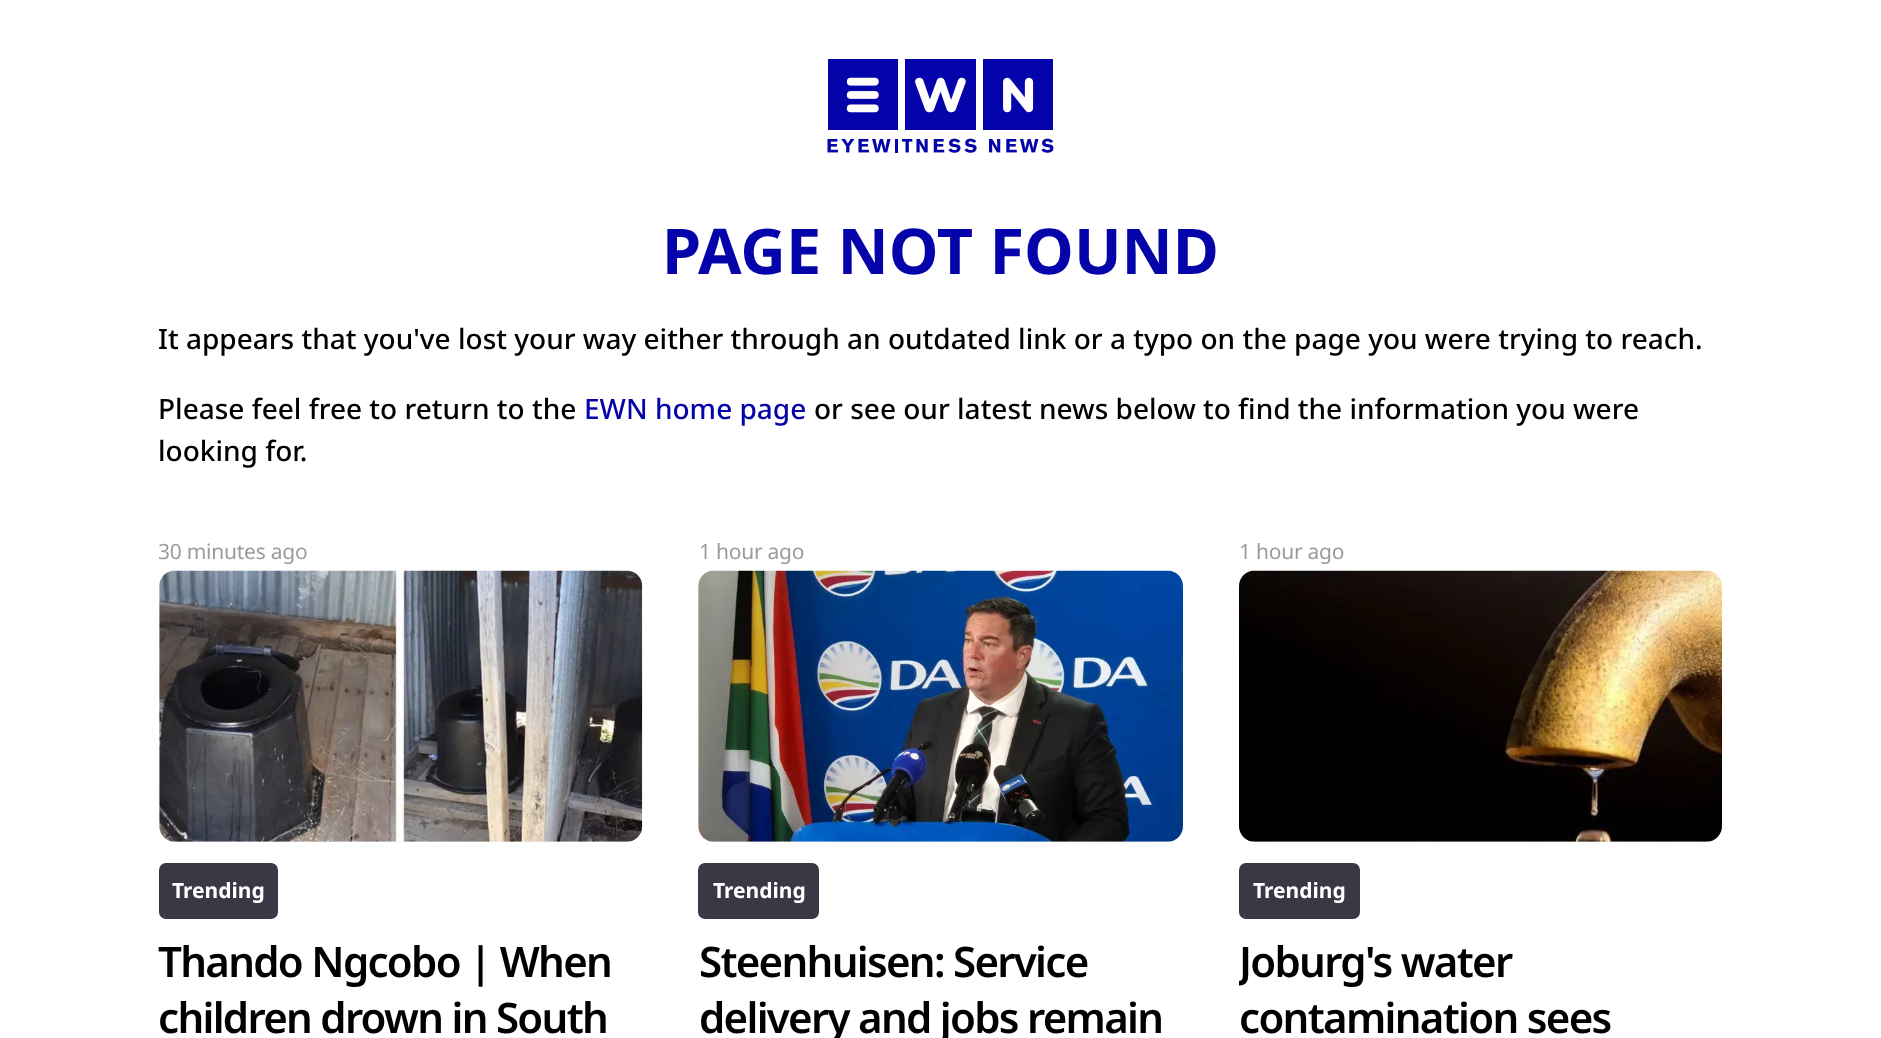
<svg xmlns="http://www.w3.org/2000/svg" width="1881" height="1038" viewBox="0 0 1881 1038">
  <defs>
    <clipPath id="clip1"><rect x="1239" y="933" width="483" height="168"/></clipPath>
  </defs>
  <rect width="100%" height="100%" fill="#ffffff"/>
  <image x="827" y="59" width="227" height="94" href="img1.png"/>
  <text x="662" y="274" font-family="Noto Sans" font-size="63" font-weight="bold" fill="#0504aa">PAGE NOT FOUND</text>
  <text x="158" y="349" font-family="Noto Sans" font-size="28" font-weight="500" fill="#000000">It appears that you've lost your way either through an outdated link or a typo on the page you were trying to reach.</text>
  <text x="158" y="419" font-family="Noto Sans" font-size="28" font-weight="500" fill="#000000">Please feel free to return to the</text>
  <text x="584" y="419" font-family="Noto Sans" font-size="28" font-weight="500" fill="#0504aa">EWN home page</text>
  <text x="814" y="419" font-family="Noto Sans" font-size="28" font-weight="500" fill="#000000">or see our latest news below to find the information you were</text>
  <text x="158" y="461" font-family="Noto Sans" font-size="28" font-weight="500" fill="#000000">looking for.</text>
  <text x="158" y="559" font-family="Noto Sans" font-size="21" letter-spacing="-0.25" fill="#9b9b9b">30 minutes ago</text>
  <rect x="159" y="571" width="483" height="271" rx="16" fill="#ededed"/>
  <image x="159" y="570" width="484" height="272" href="img2.png"/>
  <rect x="159" y="863" width="119" height="56" rx="7" fill="#393945"/>
  <text x="172" y="898" font-family="Noto Sans" font-size="21" font-weight="bold" fill="#ffffff">Trending</text>
  <text x="158" y="977" font-family="Noto Sans" font-size="42" font-weight="600" letter-spacing="-1.7" fill="#000000">Thando Ngcobo | When</text>
  <text x="158" y="1033" font-family="Noto Sans" font-size="42" font-weight="600" letter-spacing="-1.7" fill="#000000">children drown in South</text>
  <text x="699" y="559" font-family="Noto Sans" font-size="21" letter-spacing="-0.25" fill="#9b9b9b">1 hour ago</text>
  <rect x="698" y="571" width="485" height="271" rx="16" fill="#ededed"/>
  <image x="698" y="570" width="485" height="272" href="img3.png"/>
  <rect x="698" y="863" width="121" height="56" rx="7" fill="#393945"/>
  <text x="713" y="898" font-family="Noto Sans" font-size="21" font-weight="bold" fill="#ffffff">Trending</text>
  <text x="699" y="977" font-family="Noto Sans" font-size="42" font-weight="600" letter-spacing="-1.7" fill="#000000">Steenhuisen: Service</text>
  <text x="699" y="1033" font-family="Noto Sans" font-size="42" font-weight="600" letter-spacing="-1.7" fill="#000000">delivery and jobs remain</text>
  <text x="1239" y="559" font-family="Noto Sans" font-size="21" letter-spacing="-0.25" fill="#9b9b9b">1 hour ago</text>
  <rect x="1239" y="571" width="483" height="271" rx="16" fill="#ededed"/>
  <image x="1239" y="570" width="483" height="272" href="img4.png"/>
  <rect x="1239" y="863" width="121" height="56" rx="7" fill="#393945"/>
  <text x="1253" y="898" font-family="Noto Sans" font-size="21" font-weight="bold" fill="#ffffff">Trending</text>
  <g clip-path="url(#clip1)">
    <text x="1239" y="977" font-family="Noto Sans" font-size="42" font-weight="600" letter-spacing="-1.7" fill="#000000">Joburg's water</text>
  </g>
  <text x="1239" y="1033" font-family="Noto Sans" font-size="42" font-weight="600" letter-spacing="-1.7" fill="#000000">contamination sees</text>
</svg>
